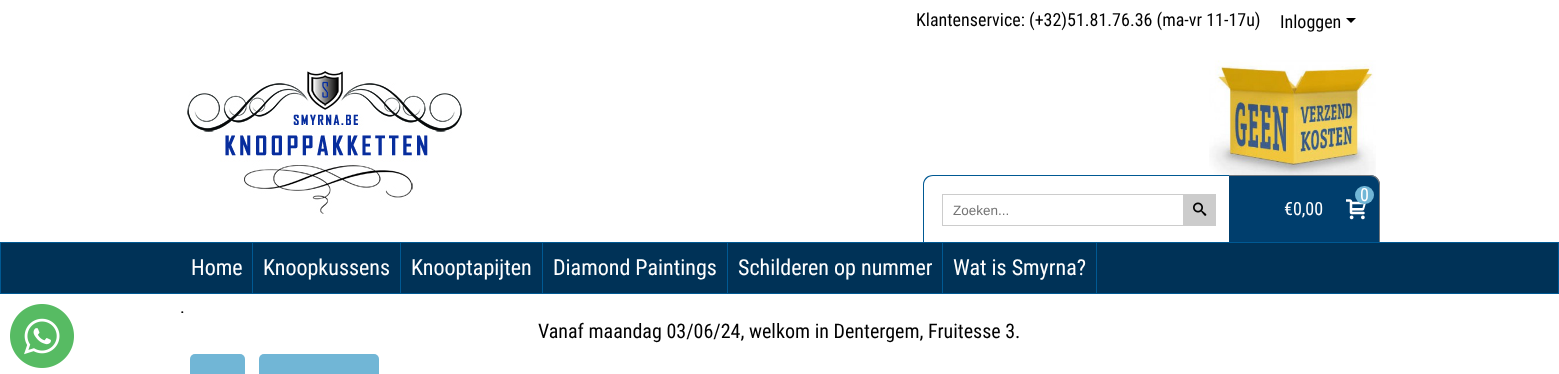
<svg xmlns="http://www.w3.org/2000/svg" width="1559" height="374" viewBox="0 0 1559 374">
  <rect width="100%" height="100%" fill="#ffffff"/>
  <text x="916" y="26" font-family="Roboto Condensed" font-size="18" fill="#000000">Klantenservice: (+32)51.81.76.36 (ma-vr 11-17u)</text>
  <text x="1280" y="28" font-family="Roboto Condensed" font-size="18" fill="#000000">Inloggen</text>
  <path d="M1346 18L1351 23L1356 18Z" fill="#000000"/>
  <image x="187" y="71" width="275" height="143" href="img1.png"/>
  <image x="1209" y="60" width="167" height="117" href="img2.png"/>
  <path d="M933 175H1230V242H923V185C923 179.5 927.5 175 933 175Z" fill="#ffffff"/>
  <path d="M933 175H1230V242H923V185C923 179 927 175 933 175ZM933 176H1230V242H924V185C924 180 928 176 933 176Z" fill="#005993" fill-rule="evenodd"/>
  <rect x="942.5" y="194.5" width="241" height="31" fill="none" stroke="#cccccc"/>
  <text x="953" y="215" font-family="Liberation Sans" font-size="13.5" fill="#757575">Zoeken...</text>
  <rect x="1184" y="194" width="32" height="32" fill="#cccccc"/>
  <image x="1193" y="202" width="14" height="14" href="img3.png"/>
  <path d="M1229 175H1370C1375.5 175 1380 179.5 1380 185V242H1229Z" fill="#003e6d"/>
  <path d="M1229 175H1370C1376 175 1380 179 1380 185V242H1229ZM1229 176H1370C1375 176 1379 180 1379 185V242H1229Z" fill="#74787d" fill-rule="evenodd"/>
  <image x="1346" y="199" width="20" height="21" href="img4.png"/>
  <rect x="1355" y="186" width="19" height="18" rx="9" fill="#71b6d6"/>
  <text x="1360" y="201" font-family="Roboto Condensed" font-size="18" fill="#ffffff">0</text>
  <text x="1284" y="215" font-family="Roboto Condensed" font-size="18" fill="#ffffff">€0,00</text>
  <rect x="0.5" y="242.5" width="1558" height="51" fill="#003257" stroke="#005993"/>
  <rect x="252" y="243" width="1" height="50" fill="#005993"/>
  <text x="191" y="275" font-family="Roboto Condensed" font-size="22" fill="#ffffff">Home</text>
  <rect x="400" y="243" width="1" height="50" fill="#005993"/>
  <text x="263" y="275" font-family="Roboto Condensed" font-size="22" fill="#ffffff">Knoopkussens</text>
  <rect x="542" y="243" width="1" height="50" fill="#005993"/>
  <text x="411" y="275" font-family="Roboto Condensed" font-size="22" fill="#ffffff">Knooptapijten</text>
  <rect x="727" y="243" width="1" height="50" fill="#005993"/>
  <text x="553" y="275" font-family="Roboto Condensed" font-size="22" fill="#ffffff">Diamond Paintings</text>
  <rect x="942" y="243" width="1" height="50" fill="#005993"/>
  <text x="738" y="275" font-family="Roboto Condensed" font-size="22" fill="#ffffff">Schilderen op nummer</text>
  <rect x="1096" y="243" width="1" height="50" fill="#005993"/>
  <text x="953" y="275" font-family="Roboto Condensed" font-size="22" fill="#ffffff">Wat is Smyrna?</text>
  <image x="10" y="304" width="64" height="64" href="img5.png"/>
  <text x="180" y="313" font-family="Roboto Condensed" font-size="18" fill="#000000">.</text>
  <text x="538" y="338" font-family="Roboto Condensed" font-size="20" fill="#000000">Vanaf maandag 03/06/24, welkom in Dentergem, Fruitesse 3.</text>
  <rect x="190" y="354" width="55" height="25" rx="5" fill="#71b6d6"/>
  <rect x="259" y="354" width="120" height="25" rx="5" fill="#71b6d6"/>
</svg>
